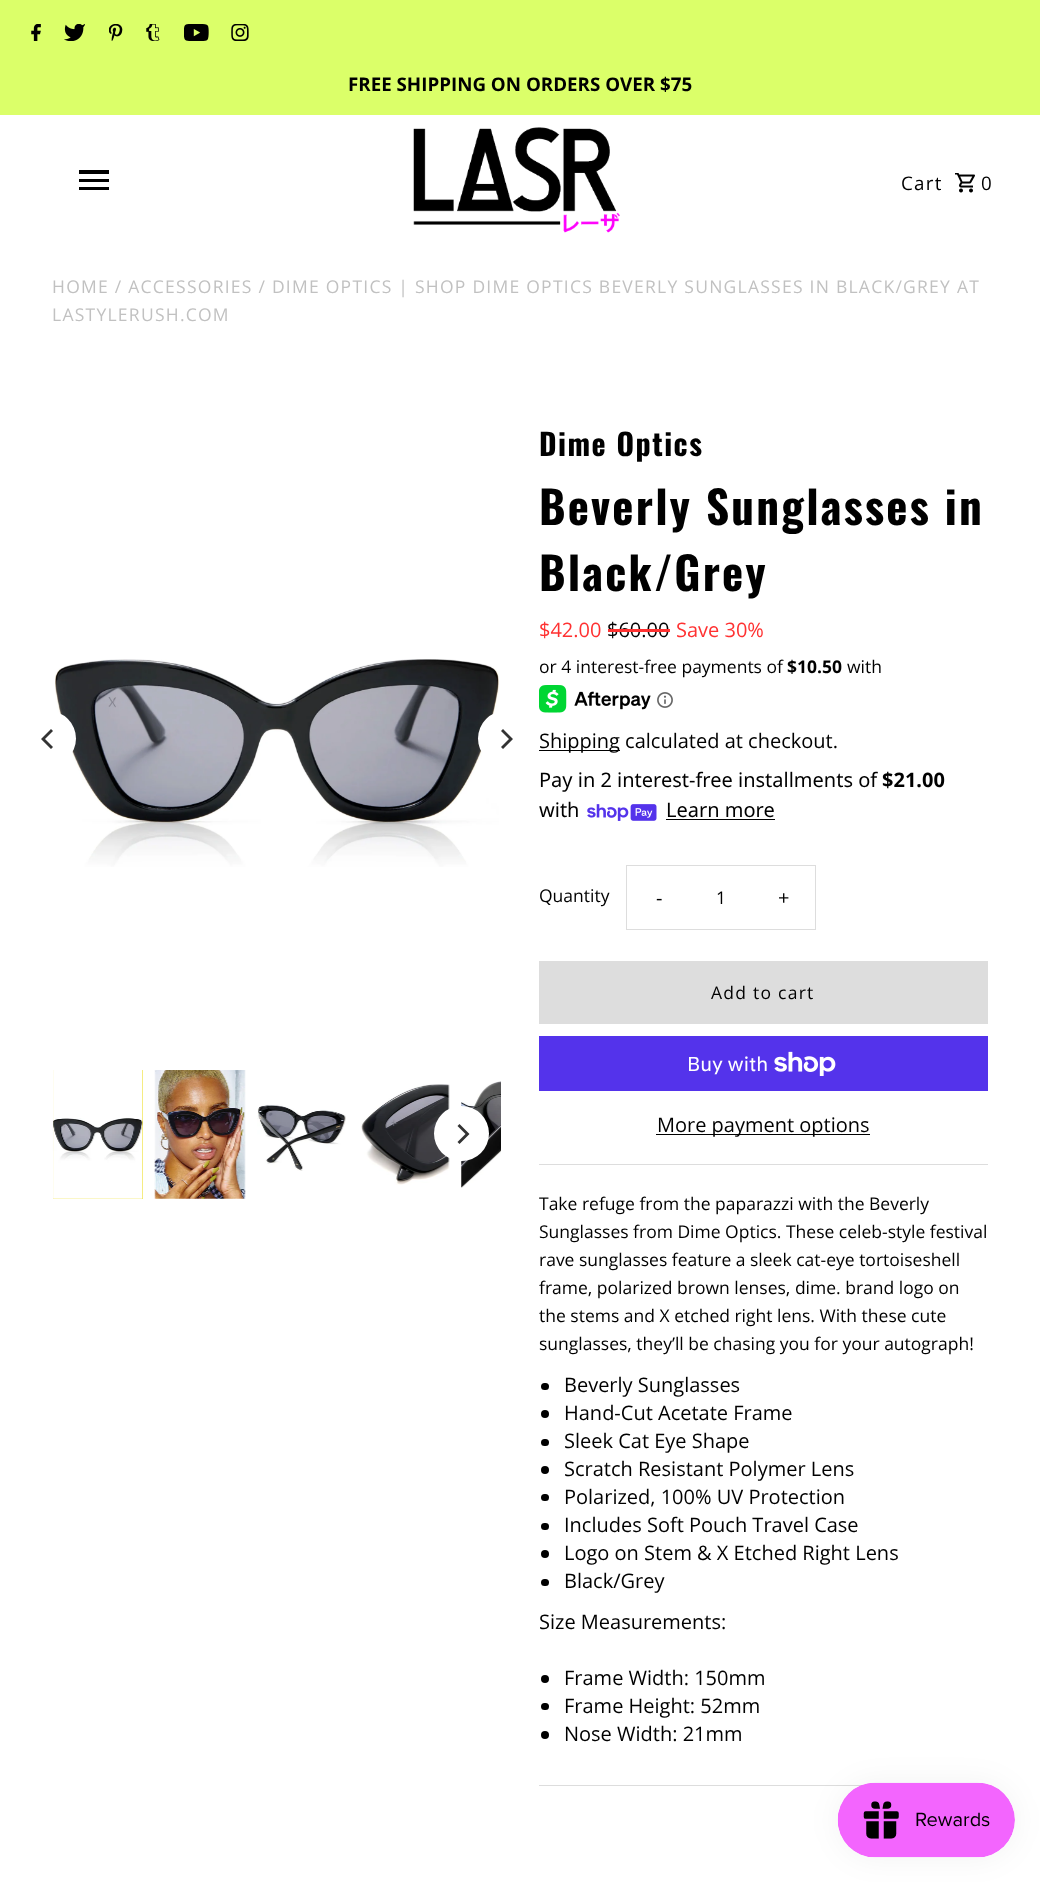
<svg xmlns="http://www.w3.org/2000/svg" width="1040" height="1882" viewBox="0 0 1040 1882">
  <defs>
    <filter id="blur1" x="-50%" y="-200%" width="200%" height="500%"><feGaussianBlur stdDeviation="15.5"/></filter>
  </defs>
  <rect width="100%" height="100%" fill="#ffffff"/>
  <rect x="0" y="0" width="1040" height="115" fill="#dbff69"/>
  <image x="31" y="24" width="10" height="17" href="img1.png"/>
  <image x="64" y="24" width="21" height="17" href="img2.png"/>
  <image x="109" y="24" width="14" height="17" href="img3.png"/>
  <image x="146" y="24" width="14" height="17" href="img4.png"/>
  <image x="184" y="24" width="25" height="17" href="img5.png"/>
  <image x="231" y="24" width="18" height="17" href="img6.png"/>
  <text x="348" y="91" font-family="Open Sans" font-size="18.75" font-weight="bold" fill="#000000">FREE SHIPPING ON ORDERS OVER $75</text>
  <rect x="79" y="187" width="30" height="3" fill="#000000"/>
  <rect x="79" y="179" width="30" height="3" fill="#000000"/>
  <rect x="79" y="170" width="30" height="4" fill="#000000"/>
  <image x="413" y="127" width="207" height="106" href="img7.png"/>
  <text x="901" y="190" font-family="Open Sans" font-size="18.75" letter-spacing="1.25" fill="#000000">Cart</text>
  <image x="955" y="173" width="20" height="20" href="img8.png"/>
  <text x="981" y="190" font-family="Open Sans" font-size="18.75" letter-spacing="1.25" fill="#000000">0</text>
  <text x="52" y="293" font-family="Open Sans" font-size="17.5" letter-spacing="1.25" fill="#c1c1c1">HOME / ACCESSORIES / DIME OPTICS | SHOP DIME OPTICS BEVERLY SUNGLASSES IN BLACK/GREY AT</text>
  <text x="52" y="321" font-family="Open Sans" font-size="17.5" letter-spacing="1.25" fill="#c1c1c1">LASTYLERUSH.COM</text>
  <image x="55" y="659" width="444" height="208" href="img9.png"/>
  <circle cx="48.5" cy="738.5" r="27.5" fill="#ffffff"/>
  <path d="M41 739L51 749L53 747L45 739L53 731L51 729Z" fill="#333333"/>
  <circle cx="505.5" cy="738.5" r="27.5" fill="#ffffff"/>
  <path d="M513 739L503 729L501 731L509 739L501 747L503 749Z" fill="#333333"/>
  <rect x="53" y="1070" width="90" height="129" fill="#eedd22"/>
  <image x="52" y="1070" width="91" height="129" href="img10.png"/>
  <image x="154" y="1070" width="92" height="129" href="img11.png"/>
  <image x="257" y="1104" width="89" height="67" href="img12.png"/>
  <image x="361" y="1084" width="89" height="101" href="img13.png"/>
  <image x="461" y="1081" width="40" height="107" href="img14.png"/>
  <circle cx="461.5" cy="1133.5" r="27.5" fill="#ffffff"/>
  <path d="M469.5 1134L459.5 1124L457.5 1126L465.5 1134L457.5 1142L459.5 1144Z" fill="#333333"/>
  <text x="539" y="456" font-family="Oswald" font-size="30" font-weight="bold" letter-spacing="1.5" fill="#000000">Dime Optics</text>
  <text x="539" y="525" font-family="Oswald" font-size="45" font-weight="bold" letter-spacing="2.25" fill="#000000">Beverly Sunglasses in</text>
  <text x="539" y="591" font-family="Oswald" font-size="45" font-weight="bold" letter-spacing="2.25" fill="#000000">Black/Grey</text>
  <text x="539" y="637" font-family="Open Sans" font-size="20" fill="#ff3131">$42.00</text>
  <text x="607" y="637" font-family="Open Sans" font-size="20" fill="#000000">$60.00</text>
  <rect x="608" y="629" width="62" height="3" fill="#ff3131"/>
  <text x="676" y="637" font-family="Open Sans" font-size="20" fill="#ff3131">Save 30%</text>
  <text x="539" y="673" font-family="Open Sans" font-size="17.5" fill="#000000">or 4 interest-free payments of</text>
  <text x="787" y="673" font-family="Open Sans" font-size="17.5" font-weight="bold" fill="#000000">$10.50</text>
  <text x="847" y="673" font-family="Open Sans" font-size="17.5" fill="#000000">with</text>
  <image x="539" y="685" width="112" height="28" href="img15.png"/>
  <image x="657" y="692" width="16" height="16" href="img16.png"/>
  <rect x="539" y="750" width="81" height="1" fill="#000000"/>
  <text x="539" y="748" font-family="Open Sans" font-size="20" fill="#000000">Shipping calculated at checkout.</text>
  <text x="539" y="787" font-family="Noto Sans" font-size="20" fill="#000000">Pay in 2 interest-free installments of</text>
  <text x="882" y="787" font-family="Noto Sans" font-size="20" font-weight="bold" fill="#000000">$21.00</text>
  <text x="539" y="817" font-family="Noto Sans" font-size="20" fill="#000000">with</text>
  <image x="587" y="804" width="70" height="17" href="img17.png"/>
  <text x="666" y="817" font-family="Noto Sans" font-size="20" fill="#000000">Learn more</text>
  <rect x="666" y="819" width="109" height="1" fill="#000000"/>
  <text x="539" y="902" font-family="Open Sans" font-size="17.5" fill="#000000">Quantity</text>
  <rect x="626.5" y="865.5" width="189" height="64" fill="none" stroke="#dddddd"/>
  <text x="656" y="905" font-family="Open Sans" font-size="20" fill="#000000">-</text>
  <text x="716" y="904" font-family="Open Sans" font-size="17.5" fill="#000000">1</text>
  <text x="778" y="905" font-family="Open Sans" font-size="20" fill="#000000">+</text>
  <rect x="539" y="961" width="449" height="63" fill="#dddddd"/>
  <text x="711" y="999" font-family="Open Sans" font-size="17.5" letter-spacing="1.25" fill="#000000">Add to cart</text>
  <rect x="539" y="1036" width="449" height="55" fill="#5433eb"/>
  <text x="687" y="1071" font-family="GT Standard" font-size="20" fill="#ffffff">Buy with</text>
  <image x="774" y="1051" width="62" height="25" href="img18.png"/>
  <rect x="656" y="1134" width="214" height="1" fill="#000000"/>
  <text x="657" y="1132" font-family="Open Sans" font-size="20" fill="#000000">More payment options</text>
  <rect x="539" y="1164" width="449" height="1" fill="#dddddd"/>
  <rect x="539" y="1785" width="323" height="1" fill="#dddddd"/>
  <text x="539" y="1210" font-family="Open Sans" font-size="17.5" fill="#000000">Take refuge from the paparazzi with the Beverly</text>
  <text x="539" y="1238" font-family="Open Sans" font-size="17.5" fill="#000000">Sunglasses from Dime Optics. These celeb-style festival</text>
  <text x="539" y="1266" font-family="Open Sans" font-size="17.5" fill="#000000">rave sunglasses feature a sleek cat-eye tortoiseshell</text>
  <text x="539" y="1294" font-family="Open Sans" font-size="17.5" fill="#000000">frame, polarized brown lenses, dime. brand logo on</text>
  <text x="539" y="1322" font-family="Open Sans" font-size="17.5" fill="#000000">the stems and X etched right lens. With these cute</text>
  <text x="539" y="1350" font-family="Open Sans" font-size="17.5" fill="#000000">sunglasses, they’ll be chasing you for your autograph!</text>
  <rect x="541" y="1383" width="8" height="7" rx="3.5" fill="#000000"/>
  <text x="564" y="1392" font-family="Open Sans" font-size="20" fill="#000000">Beverly Sunglasses</text>
  <circle cx="545" cy="1414" r="4" fill="#000000"/>
  <text x="564" y="1420" font-family="Open Sans" font-size="20" fill="#000000">Hand-Cut Acetate Frame</text>
  <rect x="541" y="1439" width="8" height="7" rx="3.5" fill="#000000"/>
  <text x="564" y="1448" font-family="Open Sans" font-size="20" fill="#000000">Sleek Cat Eye Shape</text>
  <circle cx="545" cy="1470" r="4" fill="#000000"/>
  <text x="564" y="1476" font-family="Open Sans" font-size="20" fill="#000000">Scratch Resistant Polymer Lens</text>
  <rect x="541" y="1494" width="8" height="7" rx="3.5" fill="#000000"/>
  <text x="564" y="1504" font-family="Open Sans" font-size="20" fill="#000000">Polarized, 100% UV Protection</text>
  <rect x="541" y="1523" width="8" height="7" rx="3.5" fill="#000000"/>
  <text x="564" y="1532" font-family="Open Sans" font-size="20" fill="#000000">Includes Soft Pouch Travel Case</text>
  <circle cx="545" cy="1554" r="4" fill="#000000"/>
  <text x="564" y="1560" font-family="Open Sans" font-size="20" fill="#000000">Logo on Stem &amp; X Etched Right Lens</text>
  <rect x="541" y="1579" width="8" height="7" rx="3.5" fill="#000000"/>
  <text x="564" y="1588" font-family="Open Sans" font-size="20" fill="#000000">Black/Grey</text>
  <text x="539" y="1629" font-family="Open Sans" font-size="20" fill="#000000">Size Measurements:</text>
  <circle cx="545" cy="1679" r="4" fill="#000000"/>
  <text x="564" y="1685" font-family="Open Sans" font-size="20" fill="#000000">Frame Width: 150mm</text>
  <rect x="541" y="1703" width="8" height="7" rx="3.5" fill="#000000"/>
  <text x="564" y="1713" font-family="Open Sans" font-size="20" fill="#000000">Frame Height: 52mm</text>
  <circle cx="545" cy="1735" r="4" fill="#000000"/>
  <text x="564" y="1741" font-family="Open Sans" font-size="20" fill="#000000">Nose Width: 21mm</text>
  <rect x="838" y="1783" width="177" height="75" rx="37.5" fill="#000000" fill-opacity="0.05" filter="url(#blur1)"/>
  <image x="837" y="1782" width="178" height="76" href="img19.png"/>
</svg>
